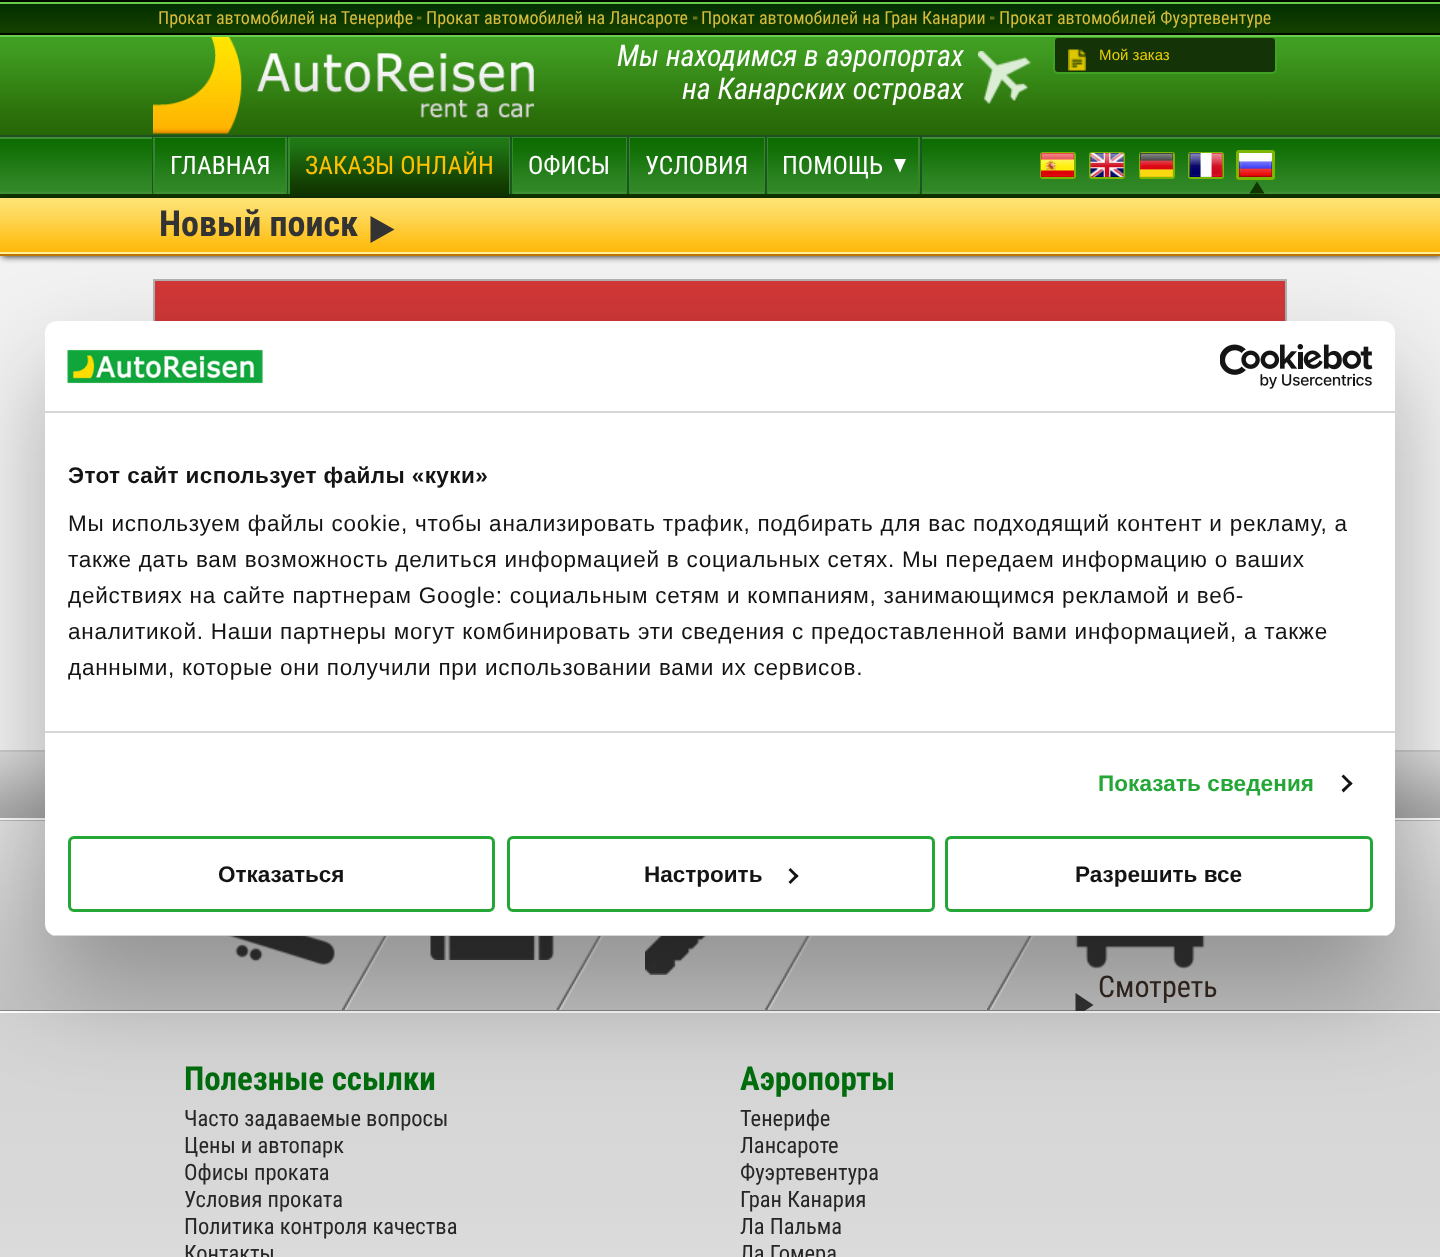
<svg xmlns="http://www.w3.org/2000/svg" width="1440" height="1257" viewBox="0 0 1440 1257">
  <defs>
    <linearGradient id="g1" gradientUnits="userSpaceOnUse" x1="720" y1="1.5" x2="720" y2="33"><stop offset="0" stop-color="#012d00"/><stop offset="1" stop-color="#154100"/></linearGradient>
    <linearGradient id="g2" gradientUnits="userSpaceOnUse" x1="720" y1="34" x2="720" y2="135"><stop offset="0" stop-color="#42a224"/><stop offset="0.19" stop-color="#3e9a20"/><stop offset="0.78" stop-color="#2c710b"/><stop offset="1" stop-color="#276706"/></linearGradient>
    <linearGradient id="g3" gradientUnits="userSpaceOnUse" x1="720" y1="136" x2="720" y2="194"><stop offset="0" stop-color="#0b6b00"/><stop offset="0.24" stop-color="#137108"/><stop offset="0.73" stop-color="#2b8321"/><stop offset="0.95" stop-color="#328928"/><stop offset="0.97" stop-color="#409036"/><stop offset="1" stop-color="#409036"/></linearGradient>
    <linearGradient id="g4" gradientUnits="userSpaceOnUse" x1="220" y1="138" x2="220" y2="194"><stop offset="0" stop-color="#0b6b00"/><stop offset="0.24" stop-color="#137108"/><stop offset="0.73" stop-color="#2b8321"/><stop offset="0.95" stop-color="#328928"/><stop offset="0.97" stop-color="#409036"/><stop offset="1" stop-color="#409036"/></linearGradient>
    <linearGradient id="g5" gradientUnits="userSpaceOnUse" x1="399" y1="138" x2="399" y2="194"><stop offset="0" stop-color="#207a15"/><stop offset="0.14" stop-color="#1f7413"/><stop offset="0.84" stop-color="#133d02"/><stop offset="1" stop-color="#113500"/></linearGradient>
    <linearGradient id="g6" gradientUnits="userSpaceOnUse" x1="569" y1="138" x2="569" y2="194"><stop offset="0" stop-color="#0b6b00"/><stop offset="0.24" stop-color="#137108"/><stop offset="0.73" stop-color="#2b8321"/><stop offset="0.95" stop-color="#328928"/><stop offset="0.97" stop-color="#409036"/><stop offset="1" stop-color="#409036"/></linearGradient>
    <linearGradient id="g7" gradientUnits="userSpaceOnUse" x1="697" y1="138" x2="697" y2="194"><stop offset="0" stop-color="#0b6b00"/><stop offset="0.24" stop-color="#137108"/><stop offset="0.73" stop-color="#2b8321"/><stop offset="0.95" stop-color="#328928"/><stop offset="0.97" stop-color="#409036"/><stop offset="1" stop-color="#409036"/></linearGradient>
    <linearGradient id="g8" gradientUnits="userSpaceOnUse" x1="843" y1="138" x2="843" y2="194"><stop offset="0" stop-color="#0b6b00"/><stop offset="0.24" stop-color="#137108"/><stop offset="0.73" stop-color="#2b8321"/><stop offset="0.95" stop-color="#328928"/><stop offset="0.97" stop-color="#409036"/><stop offset="1" stop-color="#409036"/></linearGradient>
    <filter id="blur1" x="-50%" y="-200%" width="200%" height="500%"><feGaussianBlur stdDeviation="3"/></filter>
    <linearGradient id="g9" gradientUnits="userSpaceOnUse" x1="720" y1="198" x2="720" y2="254"><stop offset="0" stop-color="#fee476"/><stop offset="0.29" stop-color="#fed95b"/><stop offset="0.77" stop-color="#ffc11d"/><stop offset="1" stop-color="#ffb807"/></linearGradient>
    <linearGradient id="g10" gradientUnits="userSpaceOnUse" x1="720" y1="751" x2="720" y2="1011"><stop offset="0" stop-color="#ececec"/><stop offset="0.15" stop-color="#e8e8e8"/><stop offset="0.71" stop-color="#cdcdcd"/><stop offset="1" stop-color="#c3c3c3"/></linearGradient>
    <linearGradient id="g11" gradientUnits="userSpaceOnUse" x1="-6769" y1="751" x2="-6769" y2="819"><stop offset="0" stop-color="#dbdbdb"/><stop offset="0.2" stop-color="#d3d3d3"/><stop offset="0.76" stop-color="#b3b3b3"/><stop offset="1" stop-color="#aaaaaa"/></linearGradient>
    <clipPath id="clip1"><rect x="0" y="752" width="1440" height="259"/></clipPath>
    <linearGradient id="g12" gradientUnits="userSpaceOnUse" x1="720" y1="1013" x2="720" y2="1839"><stop offset="0" stop-color="#d4d4d4"/><stop offset="0.21" stop-color="#d8d8d8"/><stop offset="0.76" stop-color="#ebebeb"/><stop offset="1" stop-color="#f0f0f0"/></linearGradient>
    <filter id="blur2" x="-50%" y="-200%" width="200%" height="500%"><feGaussianBlur stdDeviation="51"/></filter>
    <clipPath id="clip2"><rect x="45" y="321" width="1350" height="615" rx="12"/></clipPath>
  </defs>
  <rect width="100%" height="100%" fill="#f2f2f2"/>
  <rect x="0" y="4" width="1440" height="29" fill="url(#g1)"/>
  <rect x="0" y="0" width="1440" height="2" fill="#010800"/>
  <rect x="0" y="2" width="1440" height="2" fill="#6acc4b"/>
  <text x="158" y="24" font-family="Roboto Condensed" font-size="18" fill="#d7bb3c">Прокат автомобилей на Тенерифе</text>
  <image x="417" y="16" width="5" height="4" href="img1.png"/>
  <text x="426" y="24" font-family="Roboto Condensed" font-size="18" fill="#d7bb3c">Прокат автомобилей на Лансароте</text>
  <image x="693" y="16" width="5" height="4" href="img1.png"/>
  <text x="701" y="24" font-family="Roboto Condensed" font-size="18" fill="#d7bb3c">Прокат автомобилей на Гран Канарии</text>
  <image x="990" y="16" width="5" height="4" href="img1.png"/>
  <text x="999" y="24" font-family="Roboto Condensed" font-size="18" fill="#d7bb3c">Прокат автомобилей Фуэртевентуре</text>
  <rect x="0" y="37" width="1440" height="98" fill="url(#g2)"/>
  <rect x="0" y="33" width="1440" height="2" fill="#010800"/>
  <rect x="0" y="135" width="1440" height="2" fill="#214f26"/>
  <rect x="1054" y="37" width="222" height="36" rx="4" fill="#143306" stroke="#41a123" stroke-width="2"/>
  <rect x="0" y="35" width="1440" height="2" fill="#6acc4b"/>
  <image x="153" y="37" width="381" height="97" href="img2.png"/>
  <text x="617" y="66" font-family="Roboto Condensed" font-size="30" font-style="italic" fill="#ffffff">Мы находимся в аэропортах</text>
  <text x="682" y="99" font-family="Roboto Condensed" font-size="30" font-style="italic" fill="#ffffff">на Канарских островах</text>
  <image x="978" y="51" width="53" height="53" href="img3.png"/>
  <image x="1068" y="49" width="18" height="22" href="img4.png"/>
  <text x="1099" y="60" font-family="Liberation Sans" font-size="15" fill="#eacf01">Мой заказ</text>
  <rect x="0" y="139" width="1440" height="55" fill="url(#g3)"/>
  <rect x="0" y="194" width="1440" height="4" fill="#113500"/>
  <rect x="0" y="137" width="1440" height="2" fill="#3f8f35"/>
  <rect x="152" y="137" width="1" height="57" fill="#1b5521"/>
  <rect x="153" y="137" width="134" height="57" fill="#338929"/>
  <rect x="287" y="137" width="1" height="57" fill="#1b5521"/>
  <rect x="155" y="138" width="130" height="56" fill="url(#g4)"/>
  <text x="170" y="174" font-family="Roboto Condensed" font-size="25.5" fill="#ffffff">ГЛАВНАЯ</text>
  <rect x="288" y="137" width="222" height="57" fill="#338929"/>
  <rect x="510" y="137" width="2" height="57" fill="#1b5521"/>
  <rect x="290" y="138" width="219" height="56" fill="url(#g5)"/>
  <text x="305" y="174" font-family="Roboto Condensed" font-size="25.5" fill="#ffc002">ЗАКАЗЫ ОНЛАЙН</text>
  <rect x="512" y="137" width="115" height="57" fill="#338929"/>
  <rect x="627" y="137" width="2" height="57" fill="#1b5521"/>
  <rect x="513" y="138" width="113" height="56" fill="url(#g6)"/>
  <text x="528" y="174" font-family="Roboto Condensed" font-size="25.5" fill="#ffffff">ОФИСЫ</text>
  <rect x="629" y="137" width="136" height="57" fill="#338929"/>
  <rect x="765" y="137" width="2" height="57" fill="#1b5521"/>
  <rect x="630" y="138" width="134" height="56" fill="url(#g7)"/>
  <text x="645" y="174" font-family="Roboto Condensed" font-size="25.5" fill="#ffffff">УСЛОВИЯ</text>
  <rect x="767" y="137" width="153" height="57" fill="#338929"/>
  <rect x="920" y="137" width="2" height="57" fill="#1b5521"/>
  <rect x="768" y="138" width="150" height="56" fill="url(#g8)"/>
  <text x="782" y="174" font-family="Roboto Condensed" font-size="25.5" fill="#ffffff">ПОМОЩЬ</text>
  <path d="M894 159H906L900 172.5Z" fill="#ffffff"/>
  <rect x="1041" y="153" width="34" height="25" rx="2" fill="none" stroke="#7cb600" stroke-width="2"/>
  <image x="1041" y="153" width="33" height="24" href="img5.png"/>
  <rect x="1090" y="153" width="34" height="25" rx="2" fill="none" stroke="#7cb600" stroke-width="2"/>
  <image x="1090" y="153" width="34" height="24" href="img6.png"/>
  <rect x="1140" y="153" width="34" height="25" rx="2" fill="none" stroke="#7cb600" stroke-width="2"/>
  <image x="1140" y="153" width="33" height="24" href="img7.png"/>
  <rect x="1189" y="153" width="34" height="25" rx="2" fill="none" stroke="#7cb600" stroke-width="2"/>
  <image x="1189" y="153" width="34" height="24" href="img8.png"/>
  <rect x="1237.5" y="151.5" width="36" height="27" rx="1.5" fill="none" stroke="#7cb600" stroke-width="3"/>
  <image x="1239" y="153" width="33" height="24" href="img9.png"/>
  <path d="M1264.5 193.5H1249.5L1257 181.5Z" fill="#113500"/>
  <rect x="2" y="200" width="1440" height="57" fill="#000000" fill-opacity="0.75" filter="url(#blur1)"/>
  <rect x="0" y="198" width="1440" height="54" fill="url(#g9)"/>
  <rect x="0" y="254" width="1440" height="2" fill="#c07500"/>
  <text x="159" y="236" font-family="Roboto Condensed" font-size="36" font-weight="bold" fill="#333333">Новый поиск</text>
  <path d="M370.5 243V216L394.5 229.5Z" fill="#333333"/>
  <rect x="0" y="252" width="1440" height="2" fill="#fff299"/>
  <rect x="155" y="281" width="1130" height="40" fill="#d13737"/>
  <rect x="154" y="280" width="1132" height="216" fill="none" stroke="#b1b1b1" stroke-width="2"/>
  <rect x="0" y="821" width="1440" height="189" fill="url(#g10)"/>
  <rect x="0" y="750" width="1440" height="2" fill="#cbcbcb"/>
  <rect x="0" y="1011" width="1440" height="2" fill="#ffffff"/>
  <rect x="0" y="752" width="1440" height="66" fill="url(#g11)"/>
  <rect x="0" y="820" width="1440" height="1" fill="#bababa"/>
  <rect x="0" y="818" width="1440" height="2" fill="#ffffff"/>
  <image x="342" y="936" width="47" height="74" href="img10.png"/>
  <image x="226" y="936" width="109" height="29" href="img11.png"/>
  <image x="556" y="936" width="48" height="74" href="img12.png"/>
  <image x="430" y="936" width="124" height="24" href="img13.png"/>
  <image x="765" y="936" width="47" height="74" href="img14.png"/>
  <image x="645" y="936" width="62" height="39" href="img15.png"/>
  <image x="987" y="936" width="47" height="74" href="img14.png"/>
  <image x="1075" y="936" width="130" height="33" href="img16.png"/>
  <rect x="0" y="1010" width="1440" height="1" fill="#878787"/>
  <g clip-path="url(#clip1)">
    <path d="M1075.5 1017V993L1093.5 1005Z" fill="#333333"/>
  </g>
  <text x="1098" y="997" font-family="Roboto Condensed" font-size="30" fill="#342821">Смотреть</text>
  <rect x="0" y="1013" width="1440" height="244" fill="url(#g12)"/>
  <text x="184" y="1090" font-family="Roboto Condensed" font-size="33" font-weight="bold" fill="#006c0d">Полезные ссылки</text>
  <text x="184" y="1126" font-family="Roboto Condensed" font-size="22.5" fill="#262626">Часто задаваемые вопросы</text>
  <text x="184" y="1153" font-family="Roboto Condensed" font-size="22.5" fill="#262626">Цены и автопарк</text>
  <text x="184" y="1180" font-family="Roboto Condensed" font-size="22.5" fill="#262626">Офисы проката</text>
  <text x="184" y="1207" font-family="Roboto Condensed" font-size="22.5" fill="#262626">Условия проката</text>
  <text x="184" y="1234" font-family="Roboto Condensed" font-size="22.5" fill="#262626">Политика контроля качества</text>
  <text x="184" y="1261" font-family="Roboto Condensed" font-size="22.5" fill="#262626">Контакты</text>
  <text x="740" y="1090" font-family="Roboto Condensed" font-size="33" font-weight="bold" fill="#006c0d">Аэропорты</text>
  <text x="740" y="1126" font-family="Roboto Condensed" font-size="22.5" fill="#262626">Тенерифе</text>
  <text x="740" y="1153" font-family="Roboto Condensed" font-size="22.5" fill="#262626">Лансароте</text>
  <text x="740" y="1180" font-family="Roboto Condensed" font-size="22.5" fill="#262626">Фуэртевентура</text>
  <text x="740" y="1207" font-family="Roboto Condensed" font-size="22.5" fill="#262626">Гран Канария</text>
  <text x="740" y="1234" font-family="Roboto Condensed" font-size="22.5" fill="#262626">Ла Пальма</text>
  <text x="740" y="1261" font-family="Roboto Condensed" font-size="22.5" fill="#262626">Ла Гомера</text>
  <rect x="45" y="369" width="1350" height="615" rx="12" fill="#000000" fill-opacity="0.3" filter="url(#blur2)"/>
  <rect x="45" y="321" width="1350" height="615" rx="12" fill="#ffffff"/>
  <rect x="45" y="411" width="1350" height="2" fill="#d6d6d6"/>
  <image x="67" y="349" width="196" height="35" href="img17.png"/>
  <image x="1220" y="344" width="153" height="45" href="img18.png"/>
  <rect x="45" y="731" width="1350" height="2" fill="#d6d6d6"/>
  <text x="68" y="483" font-family="Liberation Sans" font-size="22.5" font-weight="bold" letter-spacing="0.4" fill="#141414">Этот сайт использует файлы «куки»</text>
  <text x="68" y="531" font-family="Liberation Sans" font-size="22.5" letter-spacing="0.75" fill="#141414">Мы используем файлы cookie, чтобы анализировать трафик, подбирать для вас подходящий контент и рекламу, а</text>
  <text x="68" y="567" font-family="Liberation Sans" font-size="22.5" letter-spacing="0.75" fill="#141414">также дать вам возможность делиться информацией в социальных сетях. Мы передаем информацию о ваших</text>
  <text x="68" y="603" font-family="Liberation Sans" font-size="22.5" letter-spacing="0.75" fill="#141414">действиях на сайте партнерам Google: социальным сетям и компаниям, занимающимся рекламой и веб-</text>
  <text x="68" y="639" font-family="Liberation Sans" font-size="22.5" letter-spacing="0.75" fill="#141414">аналитикой. Наши партнеры могут комбинировать эти сведения с предоставленной вами информацией, а также</text>
  <text x="68" y="675" font-family="Liberation Sans" font-size="22.5" letter-spacing="0.75" fill="#141414">данными, которые они получили при использовании вами их сервисов.</text>
  <text x="1098" y="791" font-family="Liberation Sans" font-size="22.5" font-weight="bold" letter-spacing="0.1" fill="#24a737">Показать сведения</text>
  <path d="M1343.5 774.5L1352.5 783.5L1350.5 785.5L1341.5 776.5Z" fill="#141414"/>
  <path d="M1350.5 781.5L1352.5 783.5L1343.5 792.5L1341.5 790Z" fill="#141414"/>
  <g clip-path="url(#clip2)">
    <rect x="45" y="935" width="1350" height="1" fill="#d6d6d6"/>
  </g>
  <rect x="69.5" y="837.5" width="424" height="73" rx="4.5" fill="none" stroke="#24a737" stroke-width="3"/>
  <text x="218" y="882" font-family="Liberation Sans" font-size="22.5" font-weight="bold" fill="#141414">Отказаться</text>
  <rect x="508.5" y="837.5" width="425" height="73" rx="4.5" fill="none" stroke="#24a737" stroke-width="3"/>
  <text x="644" y="882" font-family="Liberation Sans" font-size="22.5" font-weight="bold" fill="#141414">Настроить</text>
  <path d="M790.5 868L798.5 876L796.5 878L788.5 870Z" fill="#141414"/>
  <path d="M796.5 874L798.5 876L790.5 884L788.5 882Z" fill="#141414"/>
  <rect x="946.5" y="837.5" width="425" height="73" rx="4.5" fill="none" stroke="#24a737" stroke-width="3"/>
  <text x="1075" y="882" font-family="Liberation Sans" font-size="22.5" font-weight="bold" fill="#141414">Разрешить все</text>
</svg>
